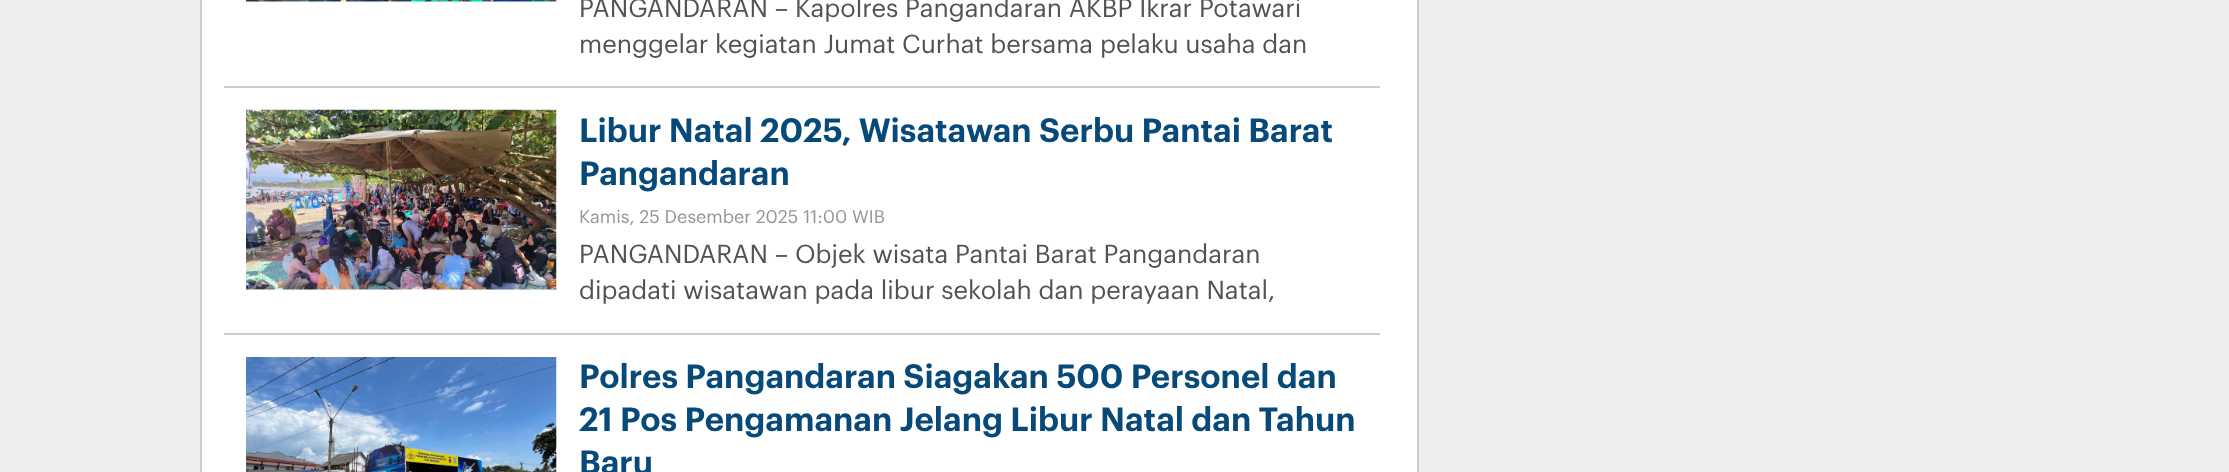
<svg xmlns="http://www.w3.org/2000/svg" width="2229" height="472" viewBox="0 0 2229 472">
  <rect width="100%" height="100%" fill="#ededed"/>
  <rect x="201" y="-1" width="1217" height="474" fill="#ffffff" stroke="#cccccc" stroke-width="2"/>
  <rect x="224" y="86" width="1156" height="2" fill="#cccccc"/>
  <image x="246" y="0" width="311" height="2" href="img1.png"/>
  <text x="579" y="17" font-family="Graphik" font-size="25.5" fill="#525252">PANGANDARAN – Kapolres Pangandaran AKBP Ikrar Potawari</text>
  <text x="579" y="53" font-family="Graphik" font-size="25.5" fill="#525252">menggelar kegiatan Jumat Curhat bersama pelaku usaha dan</text>
  <rect x="224" y="333" width="1156" height="2" fill="#cccccc"/>
  <image x="246" y="109" width="311" height="181" href="img2.png"/>
  <text x="579" y="142" font-family="Graphik" font-size="33" font-weight="600" fill="#074979">Libur Natal 2025, Wisatawan Serbu Pantai Barat</text>
  <text x="579" y="185" font-family="Graphik" font-size="33" font-weight="600" fill="#074979">Pangandaran</text>
  <text x="579" y="223" font-family="Graphik" font-size="18" fill="#959595">Kamis, 25 Desember 2025 11:00 WIB</text>
  <text x="579" y="263" font-family="Graphik" font-size="25.5" fill="#525252">PANGANDARAN – Objek wisata Pantai Barat Pangandaran</text>
  <text x="579" y="299" font-family="Graphik" font-size="25.5" fill="#525252">dipadati wisatawan pada libur sekolah dan perayaan Natal,</text>
  <image x="246" y="357" width="311" height="115" href="img3.png"/>
  <text x="579" y="388" font-family="Graphik" font-size="33" font-weight="600" fill="#074979">Polres Pangandaran Siagakan 500 Personel dan</text>
  <text x="579" y="431" font-family="Graphik" font-size="33" font-weight="600" fill="#074979">21 Pos Pengamanan Jelang Libur Natal dan Tahun</text>
  <text x="579" y="474" font-family="Graphik" font-size="33" font-weight="600" fill="#074979">Baru</text>
</svg>
